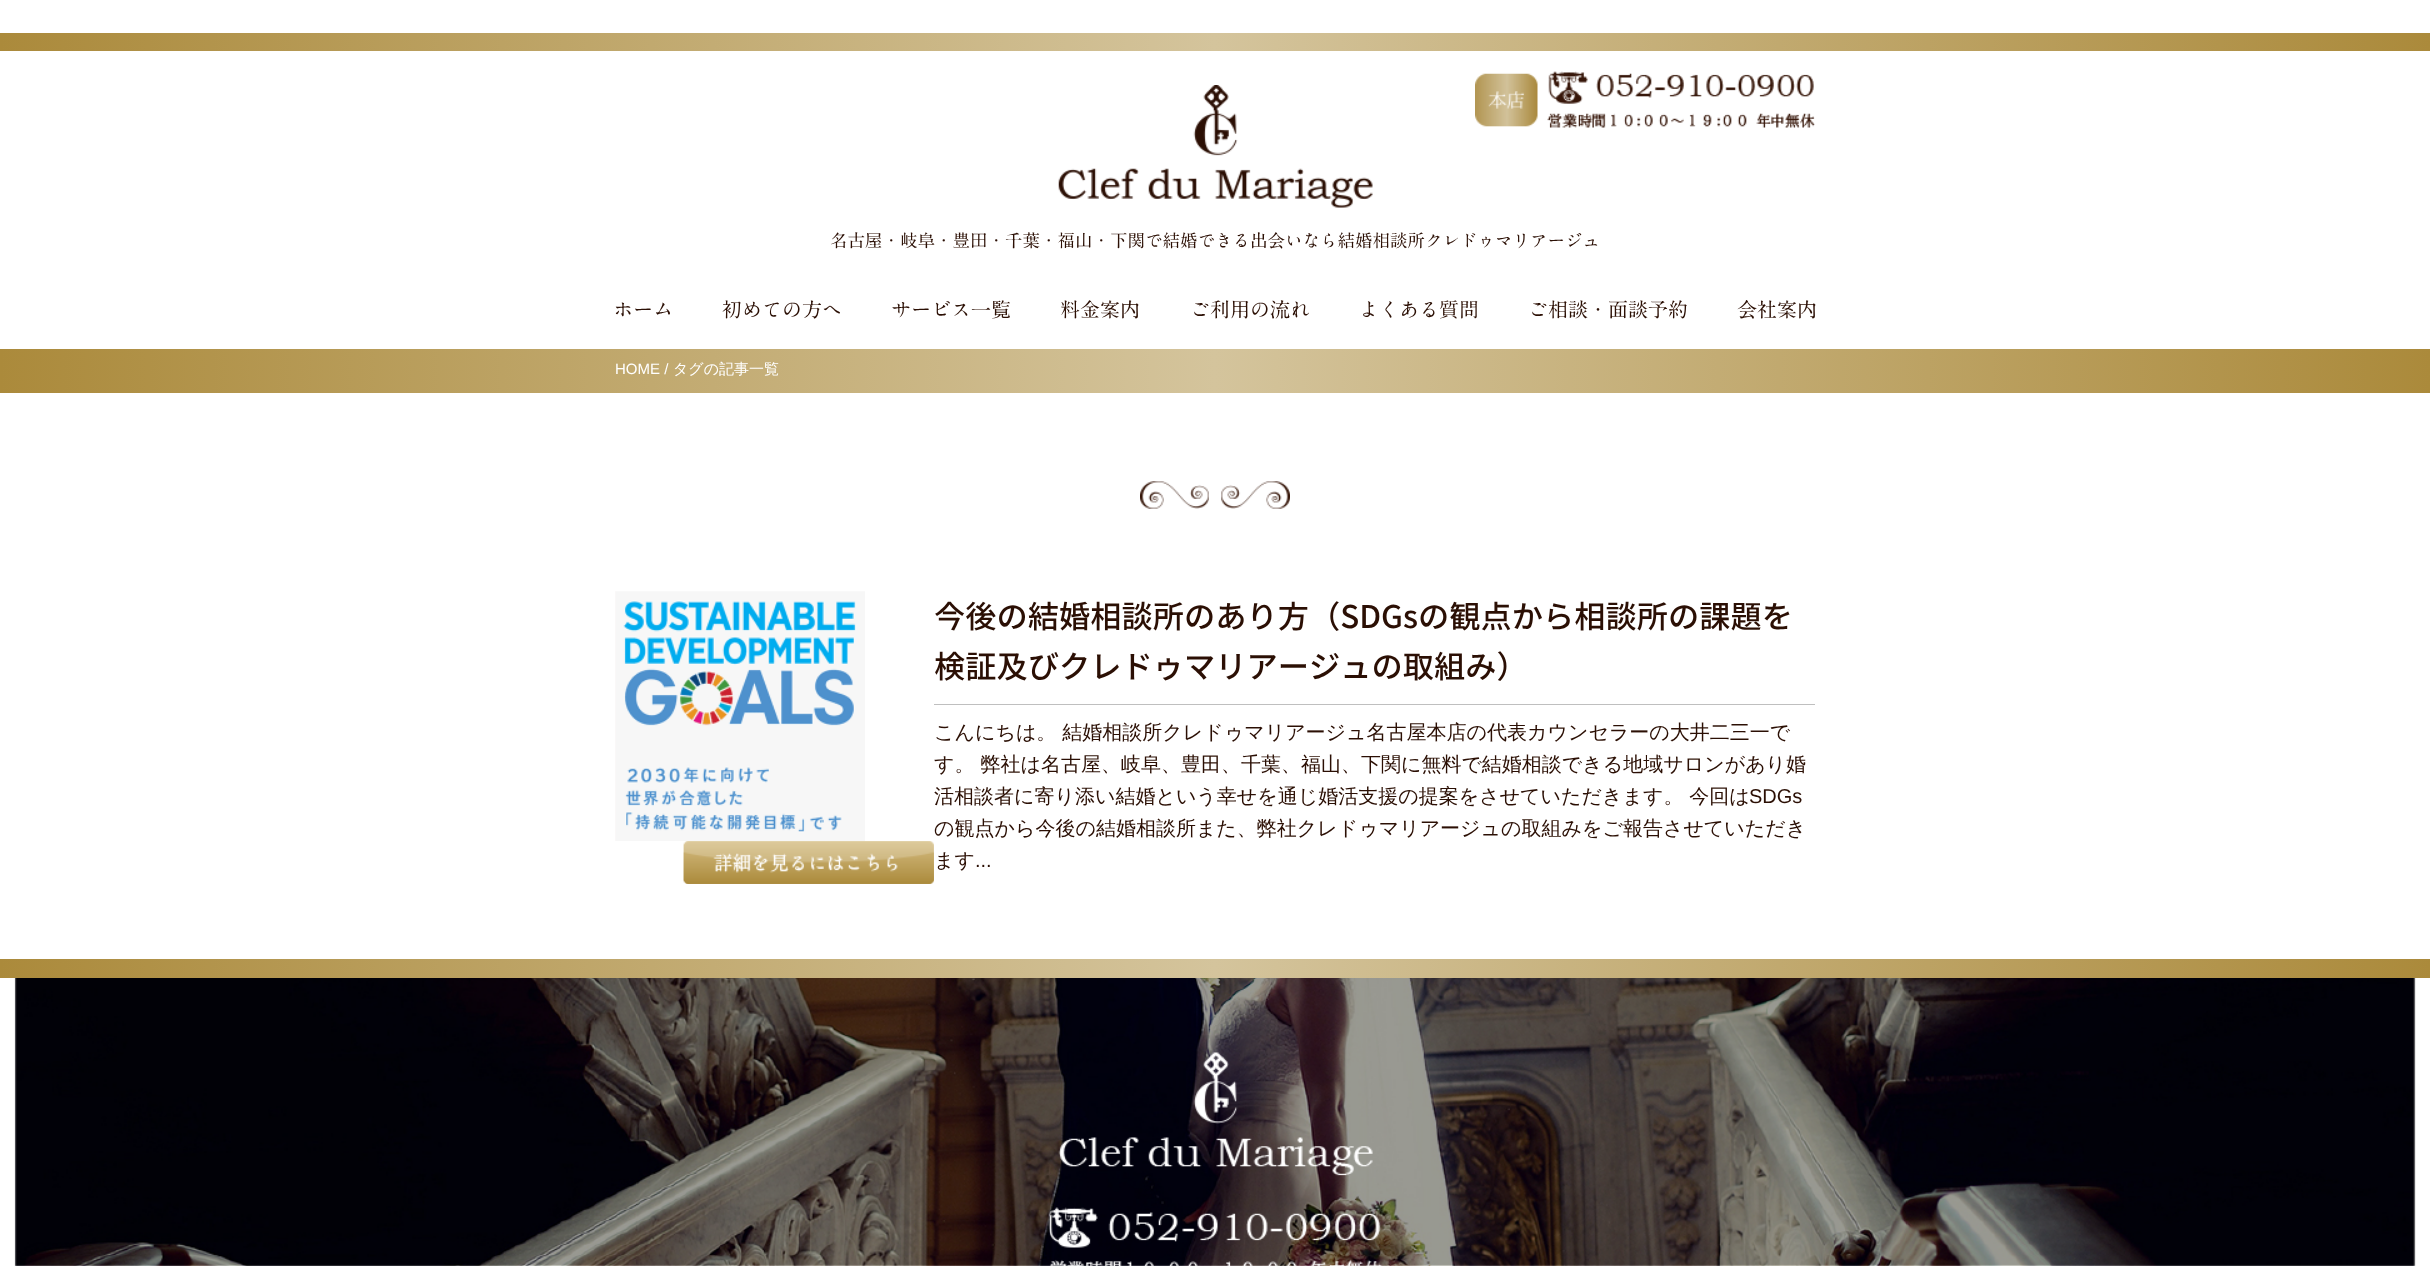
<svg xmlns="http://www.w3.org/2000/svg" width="2430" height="1266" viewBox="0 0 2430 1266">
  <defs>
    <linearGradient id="g1" gradientUnits="userSpaceOnUse" x1="0" y1="42" x2="2430" y2="42"><stop offset="0" stop-color="#ab8a3b"/><stop offset="0.5" stop-color="#d4c49c"/><stop offset="1" stop-color="#ab8a3b"/></linearGradient>
    <linearGradient id="g2" gradientUnits="userSpaceOnUse" x1="0" y1="371" x2="2430" y2="371"><stop offset="0" stop-color="#ab8a3b"/><stop offset="0.5" stop-color="#d4c49c"/><stop offset="1" stop-color="#ab8a3b"/></linearGradient>
    <linearGradient id="g3" gradientUnits="userSpaceOnUse" x1="0" y1="968" x2="2430" y2="968"><stop offset="0" stop-color="#ab8a3b"/><stop offset="0.5" stop-color="#d4c49c"/><stop offset="1" stop-color="#ab8a3b"/></linearGradient>
  </defs>
  <rect width="100%" height="100%" fill="#ffffff"/>
  <rect x="0" y="33" width="2430" height="18" fill="url(#g1)"/>
  <image x="1475" y="71" width="340" height="57" href="img1.png"/>
  <image x="1058" y="85" width="315" height="123" href="img2.png"/>
  <text x="830" y="247" font-family="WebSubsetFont" font-size="17.5" fill="#2b0f04">名古屋・岐阜・豊田・千葉・福山・下関で結婚できる出会いなら結婚相談所クレドゥマリアージュ</text>
  <text x="613" y="317" font-family="WebSubsetFont" font-size="20" fill="#2b0f04">ホーム</text>
  <text x="722" y="317" font-family="WebSubsetFont" font-size="20" fill="#2b0f04">初めての方へ</text>
  <text x="891" y="317" font-family="WebSubsetFont" font-size="20" fill="#2b0f04">サービス一覧</text>
  <text x="1060" y="317" font-family="WebSubsetFont" font-size="20" fill="#2b0f04">料金案内</text>
  <text x="1190" y="317" font-family="WebSubsetFont" font-size="20" fill="#2b0f04">ご利用の流れ</text>
  <text x="1359" y="317" font-family="WebSubsetFont" font-size="20" fill="#2b0f04">よくある質問</text>
  <text x="1528" y="317" font-family="WebSubsetFont" font-size="20" fill="#2b0f04">ご相談・面談予約</text>
  <text x="1737" y="317" font-family="WebSubsetFont" font-size="20" fill="#2b0f04">会社案内</text>
  <rect x="0" y="349" width="2430" height="44" fill="url(#g2)"/>
  <text x="615" y="374" font-family="Liberation Sans" font-size="15" fill="#ffffff">HOME /</text>
  <text x="673" y="374" font-family="WenQuanYi Zen Hei" font-size="15" font-weight="500" fill="#ffffff">タグの記事一覧</text>
  <image x="1140" y="481" width="69" height="28" href="img3.png"/>
  <image x="1221" y="481" width="69" height="28" href="img4.png"/>
  <image x="615" y="591" width="250" height="250" href="img5.png"/>
  <rect x="934" y="704" width="881" height="1" fill="#bfbfbf"/>
  <text x="934" y="628" font-family="WebSubsetFont" font-size="31.25" font-weight="500" fill="#2b0f04">今後の結婚相談所のあり方（SDGsの観点から相談所の課題を</text>
  <text x="934" y="678" font-family="WebSubsetFont" font-size="31.25" font-weight="500" fill="#2b0f04">検証及びクレドゥマリアージュの取組み）</text>
  <text x="934" y="739" font-family="WenQuanYi Zen Hei" font-size="20" font-weight="500" fill="#2b0f04">こんにちは。 結婚相談所クレドゥマリアージュ名古屋本店の代表カウンセラーの大井二三一で</text>
  <text x="934" y="771" font-family="WenQuanYi Zen Hei" font-size="20" font-weight="500" fill="#2b0f04">す。 弊社は名古屋、岐阜、豊田、千葉、福山、下関に無料で結婚相談できる地域サロンがあり婚</text>
  <text x="934" y="803" font-family="WenQuanYi Zen Hei" font-size="20" font-weight="500" fill="#2b0f04">活相談者に寄り添い結婚という幸せを通じ婚活支援の提案をさせていただきます。 今回は</text>
  <text x="1749" y="803" font-family="Liberation Sans" font-size="20" fill="#2b0f04">SDGs</text>
  <text x="934" y="835" font-family="WenQuanYi Zen Hei" font-size="20" font-weight="500" fill="#2b0f04">の観点から今後の結婚相談所また、弊社クレドゥマリアージュの取組みをご報告させていただき</text>
  <text x="934" y="867" font-family="WenQuanYi Zen Hei" font-size="20" font-weight="500" fill="#2b0f04">ます</text>
  <text x="975" y="867" font-family="Liberation Sans" font-size="20" fill="#2b0f04">...</text>
  <image x="683" y="841" width="251" height="43" href="img6.png"/>
  <image x="683" y="841" width="251" height="43" href="img7.png"/>
  <rect x="0" y="959" width="2430" height="19" fill="url(#g3)"/>
  <image x="14" y="978" width="2402" height="288" href="img8.png"/>
  <image x="1048" y="1052" width="334" height="214" href="img9.png"/>
</svg>
